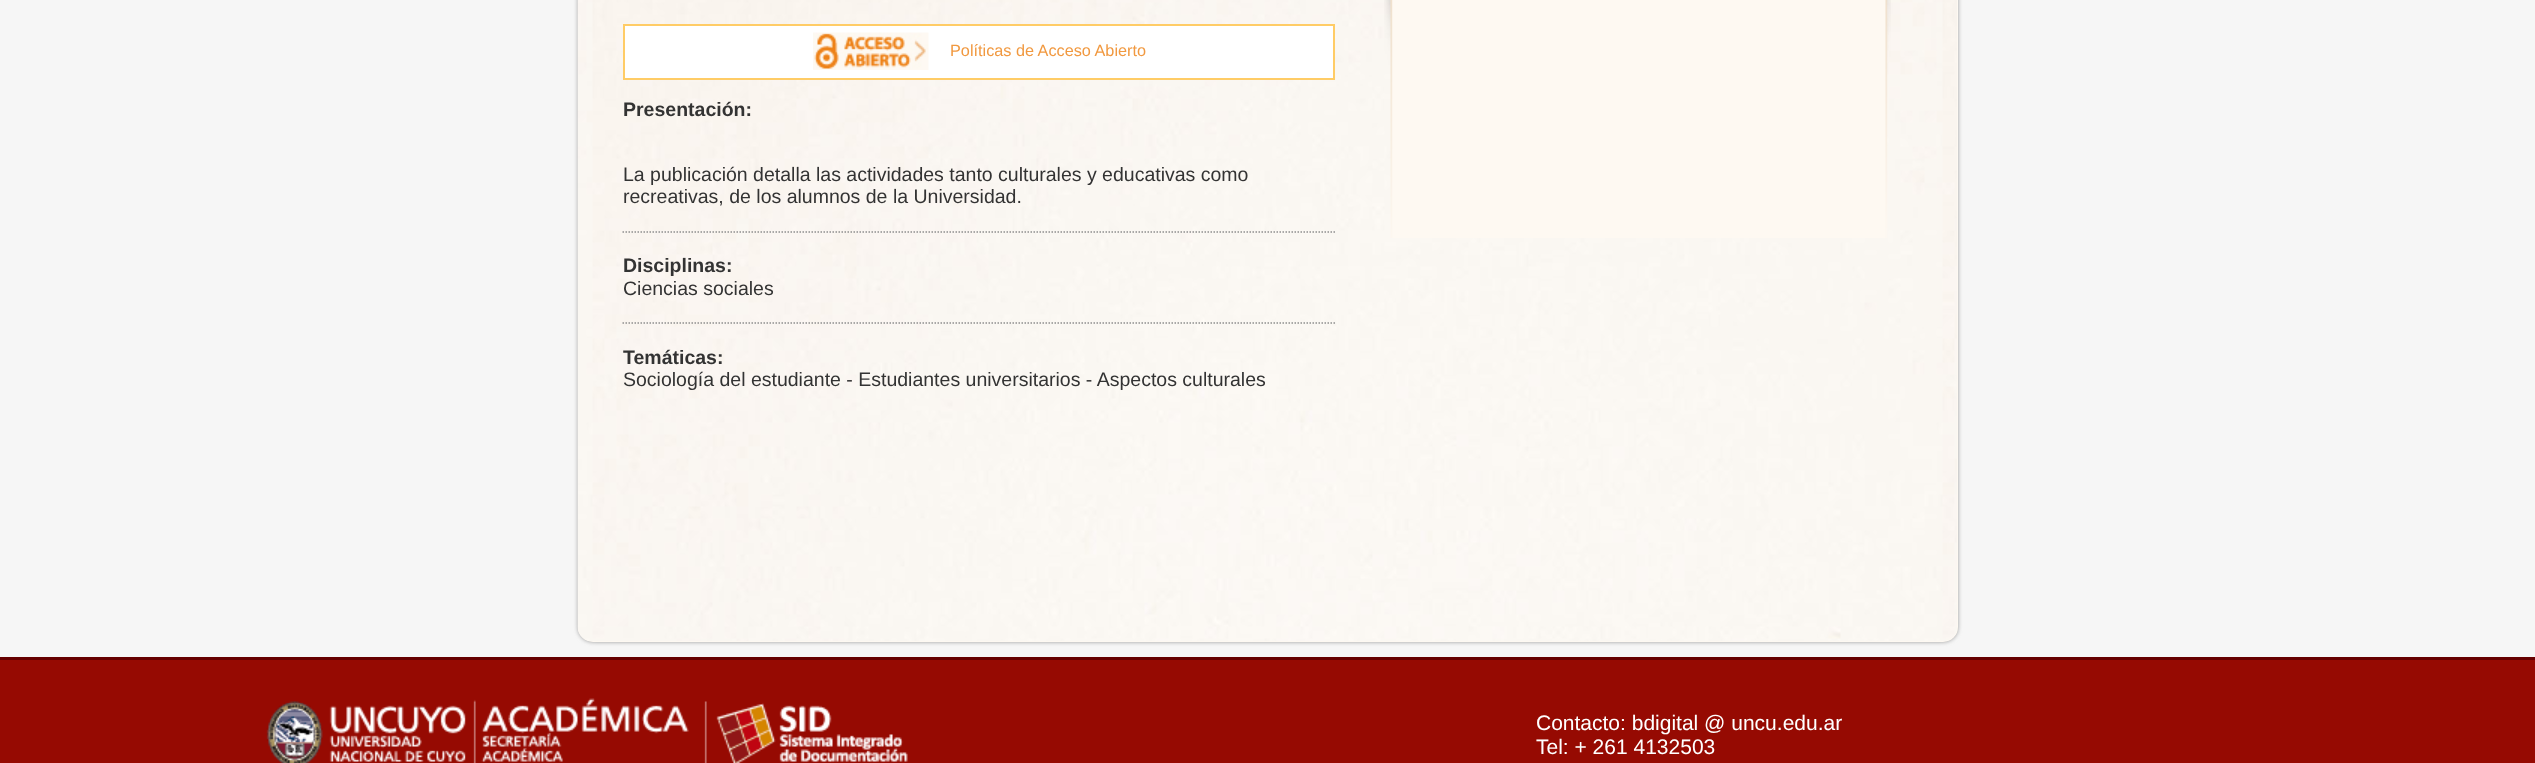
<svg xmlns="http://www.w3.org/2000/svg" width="2535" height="763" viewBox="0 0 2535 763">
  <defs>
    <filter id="blur1" x="-50%" y="-200%" width="200%" height="500%"><feGaussianBlur stdDeviation="2"/></filter>
  </defs>
  <rect width="100%" height="100%" fill="#f6f6f6"/>
  <rect x="578" y="-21" width="1380" height="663" rx="15" fill="#999999" filter="url(#blur1)"/>
  <rect x="578" y="-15" width="1380" height="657" rx="15" fill="#fef9f2"/>
  <image x="577" y="0" width="1380" height="641" href="img1.png"/>
  <rect x="624" y="25" width="710" height="54" fill="#ffffff" stroke="#ffcc66" stroke-width="2"/>
  <image x="813" y="32" width="116" height="38" href="img2.png"/>
  <text x="950" y="56" font-family="Liberation Sans" font-size="16.25" fill="#f19940">Políticas de Acceso Abierto</text>
  <text x="623" y="116" font-family="Liberation Sans" font-size="19.5" font-weight="bold" fill="#333333">Presentación:</text>
  <text x="623" y="181" font-family="Liberation Sans" font-size="19.5" fill="#333333">La publicación detalla las actividades tanto culturales y educativas como</text>
  <text x="623" y="203" font-family="Liberation Sans" font-size="19.5" fill="#333333">recreativas, de los alumnos de la Universidad.</text>
  <path d="M622.5 232H1335" fill="none" stroke="#8e8e8e" stroke-width="1.5" stroke-dasharray="1.5 1.5"/>
  <text x="623" y="272" font-family="Liberation Sans" font-size="19.5" font-weight="bold" fill="#333333">Disciplinas:</text>
  <text x="623" y="295" font-family="Liberation Sans" font-size="19.5" fill="#333333">Ciencias sociales</text>
  <path d="M622.5 323H1335" fill="none" stroke="#8e8e8e" stroke-width="1.5" stroke-dasharray="1.5 1.5"/>
  <text x="623" y="364" font-family="Liberation Sans" font-size="19.5" font-weight="bold" fill="#333333">Temáticas:</text>
  <text x="623" y="386" font-family="Liberation Sans" font-size="19.5" fill="#333333">Sociología del estudiante - Estudiantes universitarios - Aspectos culturales</text>
  <image x="1384" y="0" width="507" height="238" href="img3.png"/>
  <rect x="0" y="660" width="2535" height="103" fill="#960a02"/>
  <rect x="0" y="657" width="2535" height="3" fill="#660000"/>
  <image x="266" y="698" width="642" height="65" href="img4.png"/>
  <text x="1536" y="730" font-family="Liberation Sans" font-size="21" fill="#ffffff">Contacto: bdigital @ uncu.edu.ar</text>
  <text x="1536" y="754" font-family="Liberation Sans" font-size="21" fill="#ffffff">Tel: + 261 4132503</text>
</svg>
